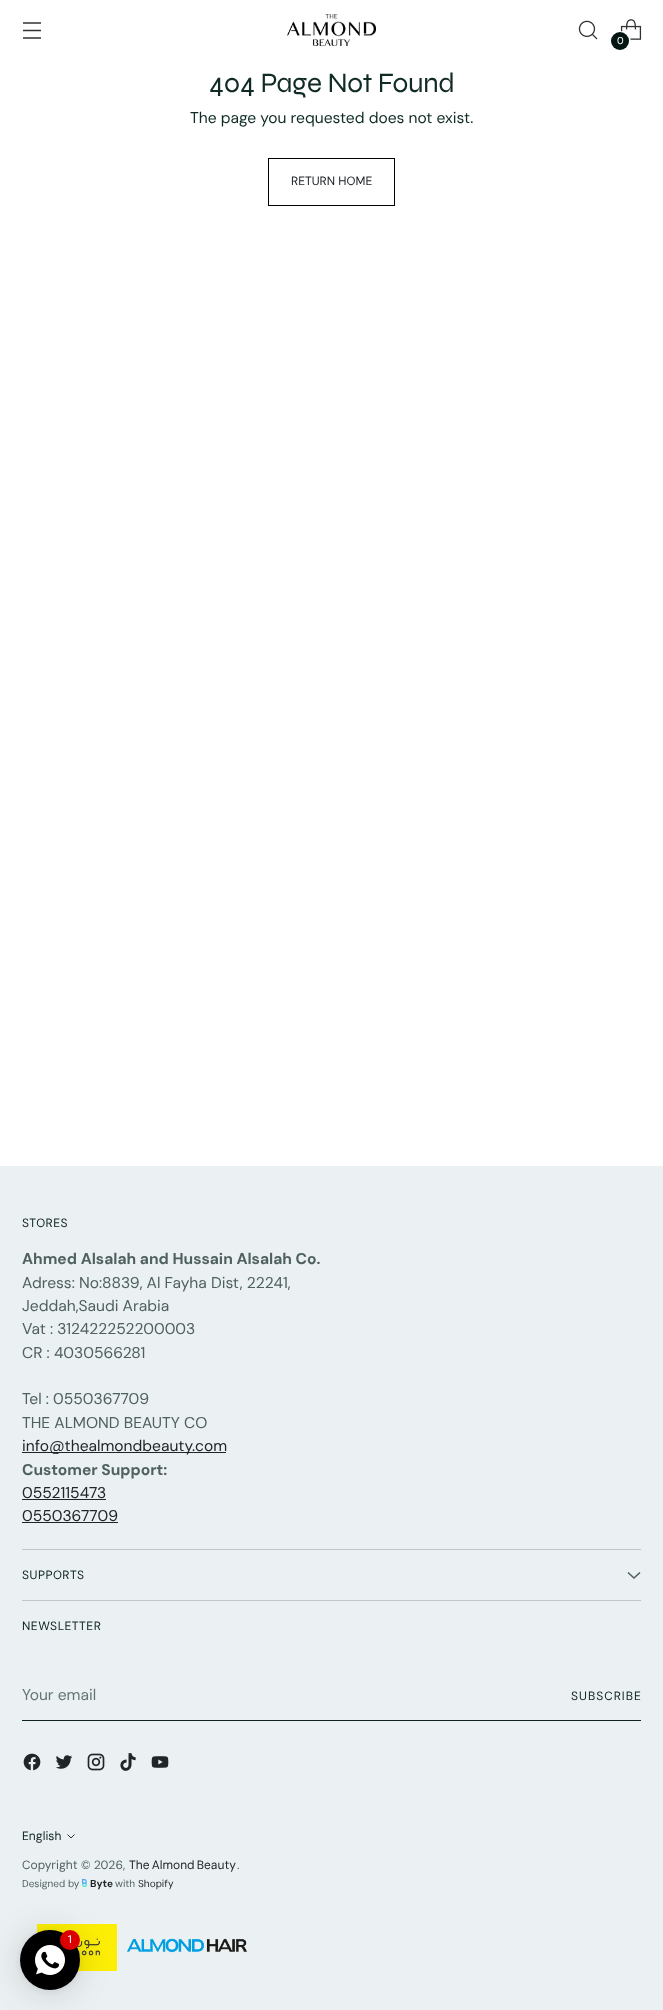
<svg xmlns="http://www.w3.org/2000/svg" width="663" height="2010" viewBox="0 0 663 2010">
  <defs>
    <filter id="blur1" x="-50%" y="-200%" width="200%" height="500%"><feGaussianBlur stdDeviation="16"/></filter>
    <filter id="blur2" x="-50%" y="-200%" width="200%" height="500%"><feGaussianBlur stdDeviation="3"/></filter>
  </defs>
  <rect width="100%" height="100%" fill="#ffffff"/>
  <path d="M23 30.5H41M23 23H41M23 38H41" fill="none" stroke="#333333" stroke-width="1.3"/>
  <image x="287" y="14" width="89" height="32" href="img1.png"/>
  <image x="578" y="20" width="20" height="20" href="img2.png"/>
  <image x="620" y="19" width="22" height="21" href="img3.png"/>
  <circle cx="620.5" cy="41.5" r="9.5" fill="none" stroke="#ffffff" stroke-width="2"/>
  <circle cx="620" cy="41" r="9" fill="#031612"/>
  <text x="617" y="44" font-family="'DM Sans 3'" font-size="10" fill="#ffffff">0</text>
  <text x="209" y="92" font-family="Syne" font-size="28" letter-spacing="-0.25" fill="#102b26">404 Page Not Found</text>
  <text x="190" y="123" font-family="DM Sans" font-size="15.6" fill="#102b26">The page you requested does not exist.</text>
  <rect x="268.5" y="158.5" width="126" height="47" fill="none" stroke="#000000"/>
  <text x="291" y="185" font-family="'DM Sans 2'" font-size="12" fill="#212529">RETURN HOME</text>
  <rect x="0" y="1166" width="663" height="844" fill="#ebf0f2"/>
  <rect x="22" y="1549" width="619" height="1" fill="#bec7c8"/>
  <text x="22" y="1227" font-family="'DM Sans 2'" font-size="12" letter-spacing="0.5" fill="#0c231e">STORES</text>
  <text x="22" y="1264" font-family="DM Sans" font-size="15.6" font-weight="bold" fill="#4f615e">Ahmed Alsalah and Hussain Alsalah Co.</text>
  <text x="22" y="1288" font-family="DM Sans" font-size="15.6" fill="#4f615e">Adress: No:8839, Al Fayha Dist, 22241,</text>
  <text x="22" y="1311" font-family="DM Sans" font-size="15.6" fill="#4f615e">Jeddah,Saudi Arabia</text>
  <text x="22" y="1334" font-family="DM Sans" font-size="15.6" fill="#4f615e">Vat : 312422252200003</text>
  <text x="22" y="1358" font-family="DM Sans" font-size="15.6" fill="#4f615e">CR : 4030566281</text>
  <text x="22" y="1404" font-family="DM Sans" font-size="15.6" fill="#4f615e">Tel : 0550367709</text>
  <text x="22" y="1428" font-family="DM Sans" font-size="15.6" fill="#4f615e">THE ALMOND BEAUTY CO</text>
  <rect x="22" y="1452" width="204" height="1" fill="#212529"/>
  <text x="22" y="1451" font-family="DM Sans" font-size="15.6" fill="#212529">info@thealmondbeauty.com</text>
  <text x="22" y="1475" font-family="DM Sans" font-size="15.6" font-weight="bold" fill="#4f615e">Customer Support:</text>
  <text x="22" y="1498" font-family="DM Sans" font-size="15.6" fill="#212529">0552115473</text>
  <rect x="22" y="1499" width="84" height="1" fill="#212529"/>
  <text x="22" y="1521" font-family="DM Sans" font-size="15.6" fill="#212529">0550367709</text>
  <rect x="22" y="1522" width="96" height="1" fill="#212529"/>
  <rect x="22" y="1600" width="619" height="1" fill="#bec7c8"/>
  <text x="22" y="1579" font-family="'DM Sans 2'" font-size="12" letter-spacing="0.5" fill="#0c231e">SUPPORTS</text>
  <path d="M628 1572.5L634 1578L640 1572.5" fill="none" stroke="#4f615e" stroke-width="1.6"/>
  <text x="22" y="1630" font-family="'DM Sans 2'" font-size="12" letter-spacing="0.5" fill="#0c231e">NEWSLETTER</text>
  <rect x="22" y="1720" width="619" height="1" fill="#0c231e"/>
  <text x="22" y="1700" font-family="DM Sans" font-size="15.6" fill="#657573">Your email</text>
  <text x="571" y="1700" font-family="'DM Sans 2'" font-size="12" letter-spacing="1" fill="#0c231e">SUBSCRIBE</text>
  <image x="23" y="1753" width="18" height="18" href="img4.png"/>
  <image x="56" y="1755" width="17" height="14" href="img5.png"/>
  <image x="87" y="1753" width="18" height="18" href="img6.png"/>
  <image x="120" y="1753" width="16" height="18" href="img7.png"/>
  <image x="151" y="1756" width="18" height="12" href="img8.png"/>
  <text x="22" y="1840" font-family="'DM Sans 2'" font-size="12" fill="#0c231e">English</text>
  <path d="M67.5 1834.5L71 1838L74.5 1834.5" fill="none" stroke="#0c231e" stroke-width="0.9"/>
  <text x="22" y="1869" font-family="'DM Sans 2'" font-size="12" fill="#4f615e">Copyright © 2026,</text>
  <text x="129" y="1869" word-spacing="-1" font-family="'DM Sans 2'" font-size="12" fill="#212529">The Almond Beauty</text>
  <text x="237" y="1869" font-family="'DM Sans 2'" font-size="12" fill="#4f615e">.</text>
  <text x="22" y="1887" font-family="'DM Sans 2'" font-size="10" fill="#4f615e">Designed by</text>
  <image x="82" y="1879" width="5" height="8" href="img9.png"/>
  <text x="90" y="1887" font-family="'DM Sans 2'" font-size="10" font-weight="bold" fill="#212529">Byte</text>
  <text x="115" y="1887" font-family="'DM Sans 2'" font-size="10" fill="#4f615e">with</text>
  <text x="138" y="1887" font-family="'DM Sans 2'" font-size="10" fill="#212529">Shopify</text>
  <image x="37" y="1924" width="80" height="47" href="img10.png"/>
  <image x="127" y="1938" width="120" height="15" href="img11.png"/>
  <rect x="20" y="1932" width="60" height="60" rx="30" fill="#000000" fill-opacity="0.16" filter="url(#blur1)"/>
  <rect x="20" y="1931" width="60" height="60" rx="30" fill="#000000" fill-opacity="0.06" filter="url(#blur2)"/>
  <circle cx="50" cy="1960" r="30" fill="#000000"/>
  <image x="35" y="1945" width="30" height="30" href="img12.png"/>
  <circle cx="70" cy="1940" r="10" fill="#dd0000"/>
  <text x="67" y="1943" font-family="Roboto" font-size="11" fill="#ffffff">1</text>
</svg>
